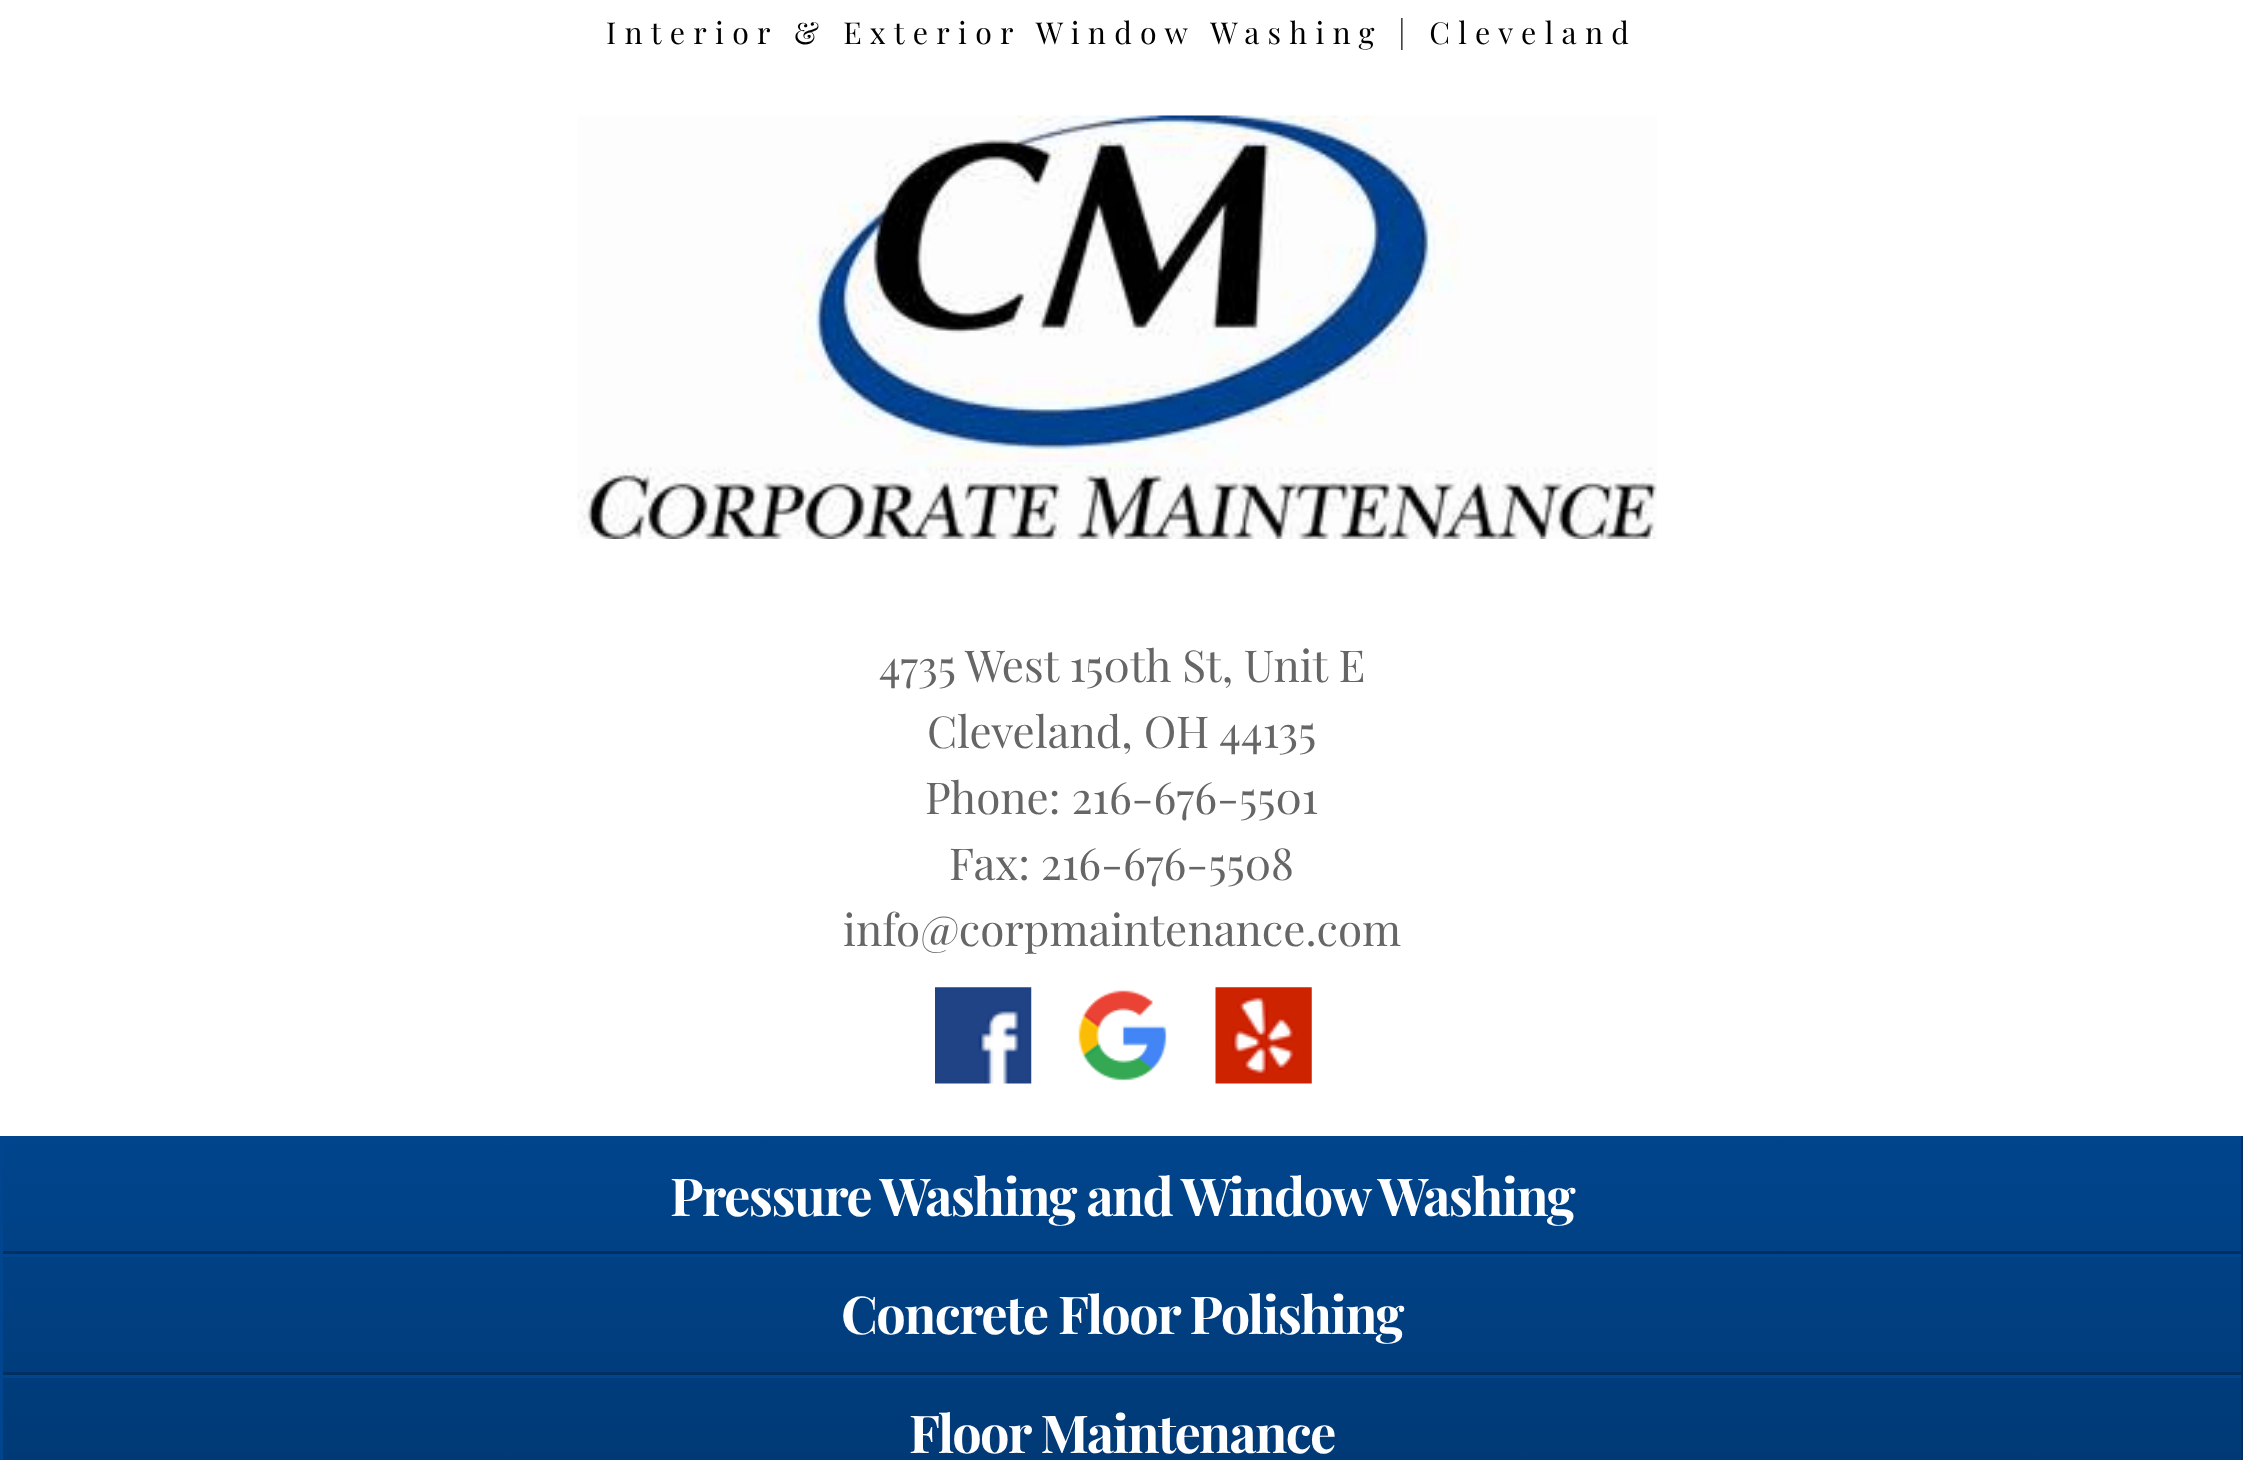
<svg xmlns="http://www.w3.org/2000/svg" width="2243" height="1460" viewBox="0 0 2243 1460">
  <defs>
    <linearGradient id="g1" gradientUnits="userSpaceOnUse" x1="1122" y1="1136" x2="1122" y2="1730"><stop offset="0" stop-color="#00458d"/><stop offset="1" stop-color="#003063"/></linearGradient>
  </defs>
  <rect width="100%" height="100%" fill="#ffffff"/>
  <text x="606" y="44" font-family="Playfair Display" font-size="30.25" letter-spacing="8.25" fill="#000000">Interior &amp; Exterior Window Washing | Cleveland</text>
  <image x="577" y="115" width="1080" height="424" href="img1.png"/>
  <text x="879" y="682" font-family="Playfair Display" font-size="44" fill="#666666">4735 West 150th St, Unit E</text>
  <text x="927" y="748" font-family="Playfair Display" font-size="44" fill="#666666">Cleveland, OH 44135</text>
  <text x="925" y="814" font-family="Playfair Display" font-size="44" fill="#666666">Phone: 216-676-5501</text>
  <text x="949" y="880" font-family="Playfair Display" font-size="44" fill="#666666">Fax: 216-676-5508</text>
  <text x="843" y="946" font-family="Playfair Display" font-size="44" fill="#666666">info@corpmaintenance.com</text>
  <image x="935" y="987" width="97" height="97" href="img2.png"/>
  <image x="1078" y="990" width="89" height="91" href="img3.png"/>
  <image x="1215" y="987" width="97" height="97" href="img4.png"/>
  <rect x="3" y="1136" width="2238" height="324" fill="url(#g1)"/>
  <rect x="2241" y="1136" width="2" height="118" fill="#003062"/>
  <rect x="0" y="1251" width="2243" height="3" fill="#003062"/>
  <rect x="0" y="1136" width="3" height="118" fill="#00458d"/>
  <text x="670" y="1216" font-family="Playfair Display" font-size="52.25" font-weight="bold" letter-spacing="-1.55" fill="#ffffff">Pressure Washing and Window Washing</text>
  <rect x="0" y="1254" width="2243" height="3" fill="#00458d"/>
  <rect x="2241" y="1254" width="2" height="121" fill="#003062"/>
  <rect x="0" y="1372" width="2243" height="3" fill="#003062"/>
  <rect x="0" y="1254" width="3" height="121" fill="#00458d"/>
  <text x="841" y="1334" font-family="Playfair Display" font-size="52.25" font-weight="bold" letter-spacing="-1.55" fill="#ffffff">Concrete Floor Polishing</text>
  <rect x="0" y="1375" width="2243" height="3" fill="#00458d"/>
  <rect x="2241" y="1375" width="2" height="85" fill="#003062"/>
  <rect x="0" y="1375" width="3" height="85" fill="#00458d"/>
  <text x="909" y="1453" font-family="Playfair Display" font-size="52.25" font-weight="bold" letter-spacing="-1.55" fill="#ffffff">Floor Maintenance</text>
</svg>
